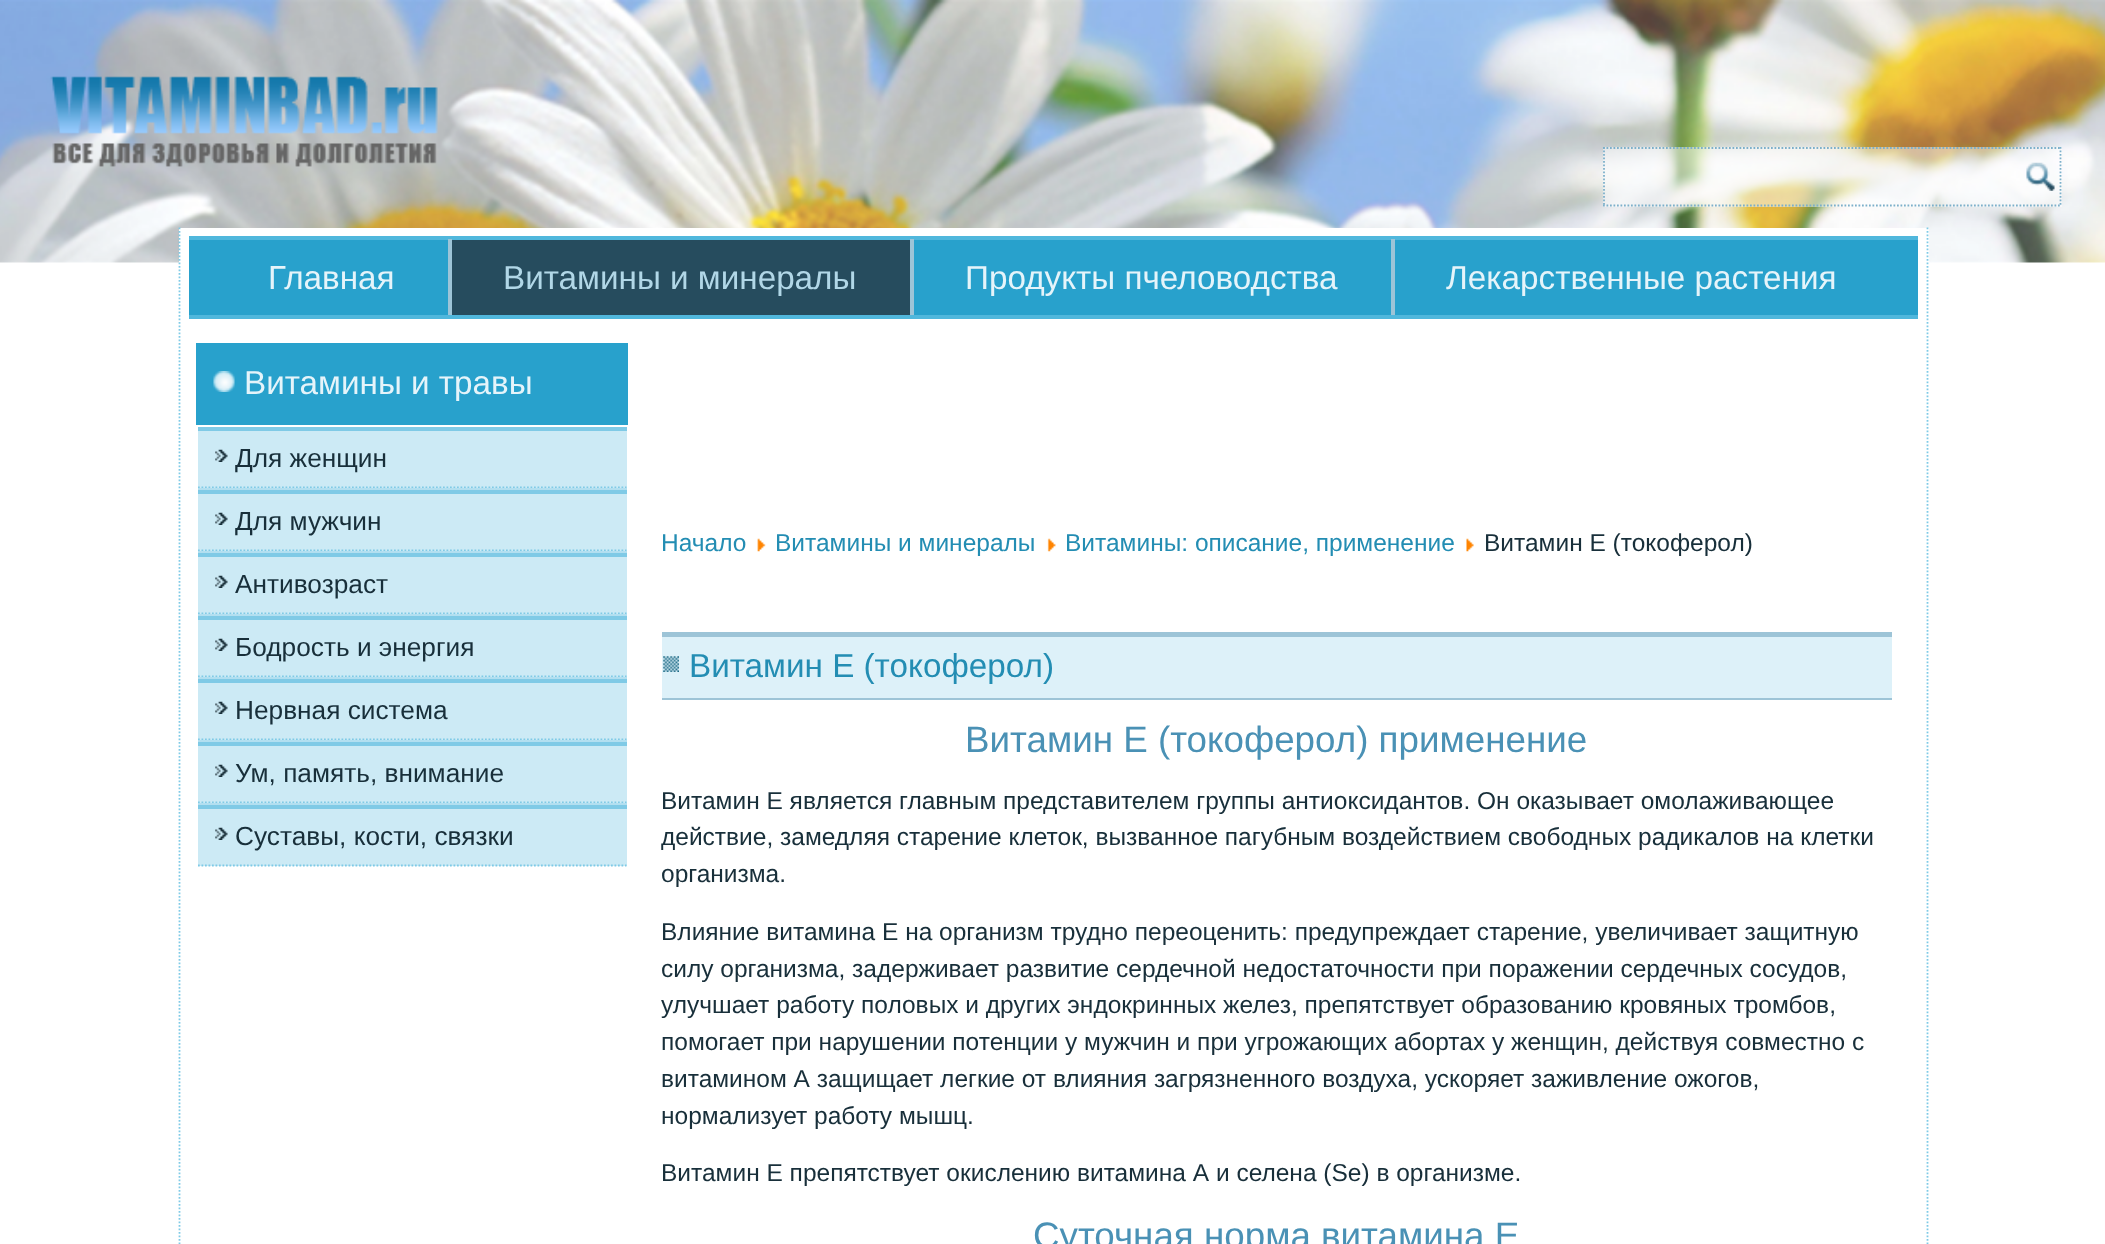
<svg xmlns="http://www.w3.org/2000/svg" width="2105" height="1244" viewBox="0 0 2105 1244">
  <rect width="100%" height="100%" fill="#ffffff"/>
  <image x="0" y="0" width="2105" height="263" href="img1.png"/>
  <image x="50" y="76" width="388" height="91" href="img2.png"/>
  <rect x="1603" y="147" width="459" height="60" fill="#ffffff" fill-opacity="0.5"/>
  <path d="M1603 148H2061.5" fill="none" stroke="#7db0ca" stroke-width="1.8" stroke-dasharray="1.75 1.75"/>
  <path d="M2060.5 147V206.5" fill="none" stroke="#7db0ca" stroke-width="1.8" stroke-dasharray="1.75 1.75"/>
  <path d="M1603 205.5H2061.5" fill="none" stroke="#7db0ca" stroke-width="1.8" stroke-dasharray="1.75 1.75"/>
  <path d="M1604 147V206.5" fill="none" stroke="#7db0ca" stroke-width="1.8" stroke-dasharray="1.75 1.75"/>
  <image x="2026" y="162" width="29" height="29" href="img3.png"/>
  <rect x="179" y="228" width="1750" height="35" fill="#ffffff"/>
  <path d="M1927.5 227.5V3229" fill="none" stroke="#7fcae6" stroke-width="1.8" stroke-dasharray="1.75 1.75"/>
  <path d="M179.5 227.5V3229" fill="none" stroke="#7fcae6" stroke-width="1.8" stroke-dasharray="1.75 1.75"/>
  <rect x="189" y="240" width="1729" height="75" fill="#28a1cc"/>
  <rect x="189" y="236" width="1729" height="4" fill="#50b7dc"/>
  <rect x="189" y="315" width="1729" height="4" fill="#50b7dc"/>
  <text x="268" y="289" font-family="Liberation Sans" font-size="33.25" fill="#e5f4fa">Главная</text>
  <rect x="448" y="239" width="4" height="76" fill="#9dc4d7"/>
  <rect x="452" y="240" width="458" height="75" fill="#264c5e"/>
  <text x="503" y="289" font-family="Liberation Sans" font-size="33.25" fill="#b1d7e7">Витамины и минералы</text>
  <rect x="910" y="239" width="4" height="76" fill="#9dc4d7"/>
  <text x="965" y="289" font-family="Liberation Sans" font-size="33.25" fill="#e5f4fa">Продукты пчеловодства</text>
  <rect x="1391" y="239" width="4" height="76" fill="#9dc4d7"/>
  <text x="1446" y="289" font-family="Liberation Sans" font-size="33.25" fill="#e5f4fa">Лекарственные растения</text>
  <rect x="196" y="343" width="432" height="82" fill="#28a1cc"/>
  <image x="213" y="371" width="22" height="21" href="img4.png"/>
  <text x="244" y="394" font-family="Liberation Sans" font-size="33.25" fill="#e5f4fa">Витамины и травы</text>
  <rect x="198" y="431" width="429" height="57" fill="#cceaf5"/>
  <rect x="198" y="427" width="429" height="4" fill="#7fcae6"/>
  <path d="M198 487.5H626.5" fill="none" stroke="#7fcae6" stroke-width="1.8" stroke-dasharray="1.75 1.75"/>
  <image x="215" y="449" width="13" height="13" href="img5.png"/>
  <text x="235" y="467" font-family="Liberation Sans" font-size="26.25" fill="#182f3a">Для женщин</text>
  <rect x="198" y="488" width="429" height="2" fill="#b2dff0"/>
  <rect x="198" y="494" width="429" height="57" fill="#cceaf5"/>
  <rect x="198" y="490" width="429" height="4" fill="#7fcae6"/>
  <path d="M198 550.5H626.5" fill="none" stroke="#7fcae6" stroke-width="1.8" stroke-dasharray="1.75 1.75"/>
  <image x="215" y="512" width="13" height="13" href="img5.png"/>
  <text x="235" y="530" font-family="Liberation Sans" font-size="26.25" fill="#182f3a">Для мужчин</text>
  <rect x="198" y="551" width="429" height="2" fill="#b2dff0"/>
  <rect x="198" y="557" width="429" height="57" fill="#cceaf5"/>
  <rect x="198" y="553" width="429" height="4" fill="#7fcae6"/>
  <path d="M198 613.5H626.5" fill="none" stroke="#7fcae6" stroke-width="1.8" stroke-dasharray="1.75 1.75"/>
  <image x="215" y="575" width="13" height="13" href="img5.png"/>
  <text x="235" y="593" font-family="Liberation Sans" font-size="26.25" fill="#182f3a">Антивозраст</text>
  <rect x="198" y="614" width="429" height="2" fill="#b2dff0"/>
  <rect x="198" y="620" width="429" height="57" fill="#cceaf5"/>
  <rect x="198" y="616" width="429" height="4" fill="#7fcae6"/>
  <path d="M198 676.5H626.5" fill="none" stroke="#7fcae6" stroke-width="1.8" stroke-dasharray="1.75 1.75"/>
  <image x="215" y="638" width="13" height="13" href="img5.png"/>
  <text x="235" y="656" font-family="Liberation Sans" font-size="26.25" fill="#182f3a">Бодрость и энергия</text>
  <rect x="198" y="677" width="429" height="2" fill="#b2dff0"/>
  <rect x="198" y="683" width="429" height="57" fill="#cceaf5"/>
  <rect x="198" y="679" width="429" height="4" fill="#7fcae6"/>
  <path d="M198 739.5H626.5" fill="none" stroke="#7fcae6" stroke-width="1.8" stroke-dasharray="1.75 1.75"/>
  <image x="215" y="701" width="13" height="13" href="img5.png"/>
  <text x="235" y="719" font-family="Liberation Sans" font-size="26.25" fill="#182f3a">Нервная система</text>
  <rect x="198" y="740" width="429" height="2" fill="#b2dff0"/>
  <rect x="198" y="746" width="429" height="57" fill="#cceaf5"/>
  <rect x="198" y="742" width="429" height="4" fill="#7fcae6"/>
  <path d="M198 802.5H626.5" fill="none" stroke="#7fcae6" stroke-width="1.8" stroke-dasharray="1.75 1.75"/>
  <image x="215" y="764" width="13" height="13" href="img5.png"/>
  <text x="235" y="782" font-family="Liberation Sans" font-size="26.25" fill="#182f3a">Ум, память, внимание</text>
  <rect x="198" y="803" width="429" height="2" fill="#b2dff0"/>
  <rect x="198" y="809" width="429" height="57" fill="#cceaf5"/>
  <rect x="198" y="805" width="429" height="4" fill="#7fcae6"/>
  <path d="M198 865.5H626.5" fill="none" stroke="#7fcae6" stroke-width="1.8" stroke-dasharray="1.75 1.75"/>
  <image x="215" y="827" width="13" height="13" href="img5.png"/>
  <text x="235" y="845" font-family="Liberation Sans" font-size="26.25" fill="#182f3a">Суставы, кости, связки</text>
  <text x="661" y="551" font-family="Liberation Sans" font-size="24.5" fill="#238db3">Начало</text>
  <image x="757" y="538" width="9" height="14" href="img6.png"/>
  <text x="775" y="551" font-family="Liberation Sans" font-size="24.5" fill="#238db3">Витамины и минералы</text>
  <image x="1047" y="538" width="9" height="14" href="img7.png"/>
  <text x="1065" y="551" font-family="Liberation Sans" font-size="24.5" fill="#238db3">Витамины: описание, применение</text>
  <image x="1466" y="538" width="8" height="14" href="img8.png"/>
  <text x="1484" y="551" font-family="Liberation Sans" font-size="24.5" fill="#182f3a">Витамин Е (токоферол)</text>
  <rect x="662" y="637" width="1230" height="61" fill="#ddf1f9"/>
  <rect x="662" y="632" width="1230" height="5" fill="#9dc4d7"/>
  <rect x="662" y="698" width="1230" height="2" fill="#9dc4d7"/>
  <image x="663" y="656" width="16" height="16" href="img9.png"/>
  <text x="689" y="677" font-family="Liberation Sans" font-size="33.25" fill="#238db3">Витамин Е (токоферол)</text>
  <text x="965" y="752" font-family="Liberation Sans" font-size="36.75" fill="#4a91b5">Витамин Е (токоферол) применение</text>
  <text x="661" y="809" font-family="Liberation Sans" font-size="24.5" fill="#182f3a">Витамин Е является главным представителем группы антиоксидантов. Он оказывает омолаживающее</text>
  <text x="661" y="845" font-family="Liberation Sans" font-size="24.5" fill="#182f3a">действие, замедляя старение клеток, вызванное пагубным воздействием свободных радикалов на клетки</text>
  <text x="661" y="882" font-family="Liberation Sans" font-size="24.5" fill="#182f3a">организма.</text>
  <text x="661" y="940" font-family="Liberation Sans" font-size="24.5" fill="#182f3a">Влияние витамина Е на организм трудно переоценить: предупреждает старение, увеличивает защитную</text>
  <text x="661" y="977" font-family="Liberation Sans" font-size="24.5" fill="#182f3a">силу организма, задерживает развитие сердечной недостаточности при поражении сердечных сосудов,</text>
  <text x="661" y="1013" font-family="Liberation Sans" font-size="24.5" fill="#182f3a">улучшает работу половых и других эндокринных желез, препятствует образованию кровяных тромбов,</text>
  <text x="661" y="1050" font-family="Liberation Sans" font-size="24.5" fill="#182f3a">помогает при нарушении потенции у мужчин и при угрожающих абортах у женщин, действуя совместно с</text>
  <text x="661" y="1087" font-family="Liberation Sans" font-size="24.5" fill="#182f3a">витамином А защищает легкие от влияния загрязненного воздуха, ускоряет заживление ожогов,</text>
  <text x="661" y="1124" font-family="Liberation Sans" font-size="24.5" fill="#182f3a">нормализует работу мышц.</text>
  <text x="661" y="1181" font-family="Liberation Sans" font-size="24.5" fill="#182f3a">Витамин Е препятствует окислению витамина А и селена (Se) в организме.</text>
  <text x="1033" y="1248" font-family="Liberation Sans" font-size="36.75" fill="#4a91b5">Суточная норма витамина Е</text>
</svg>
